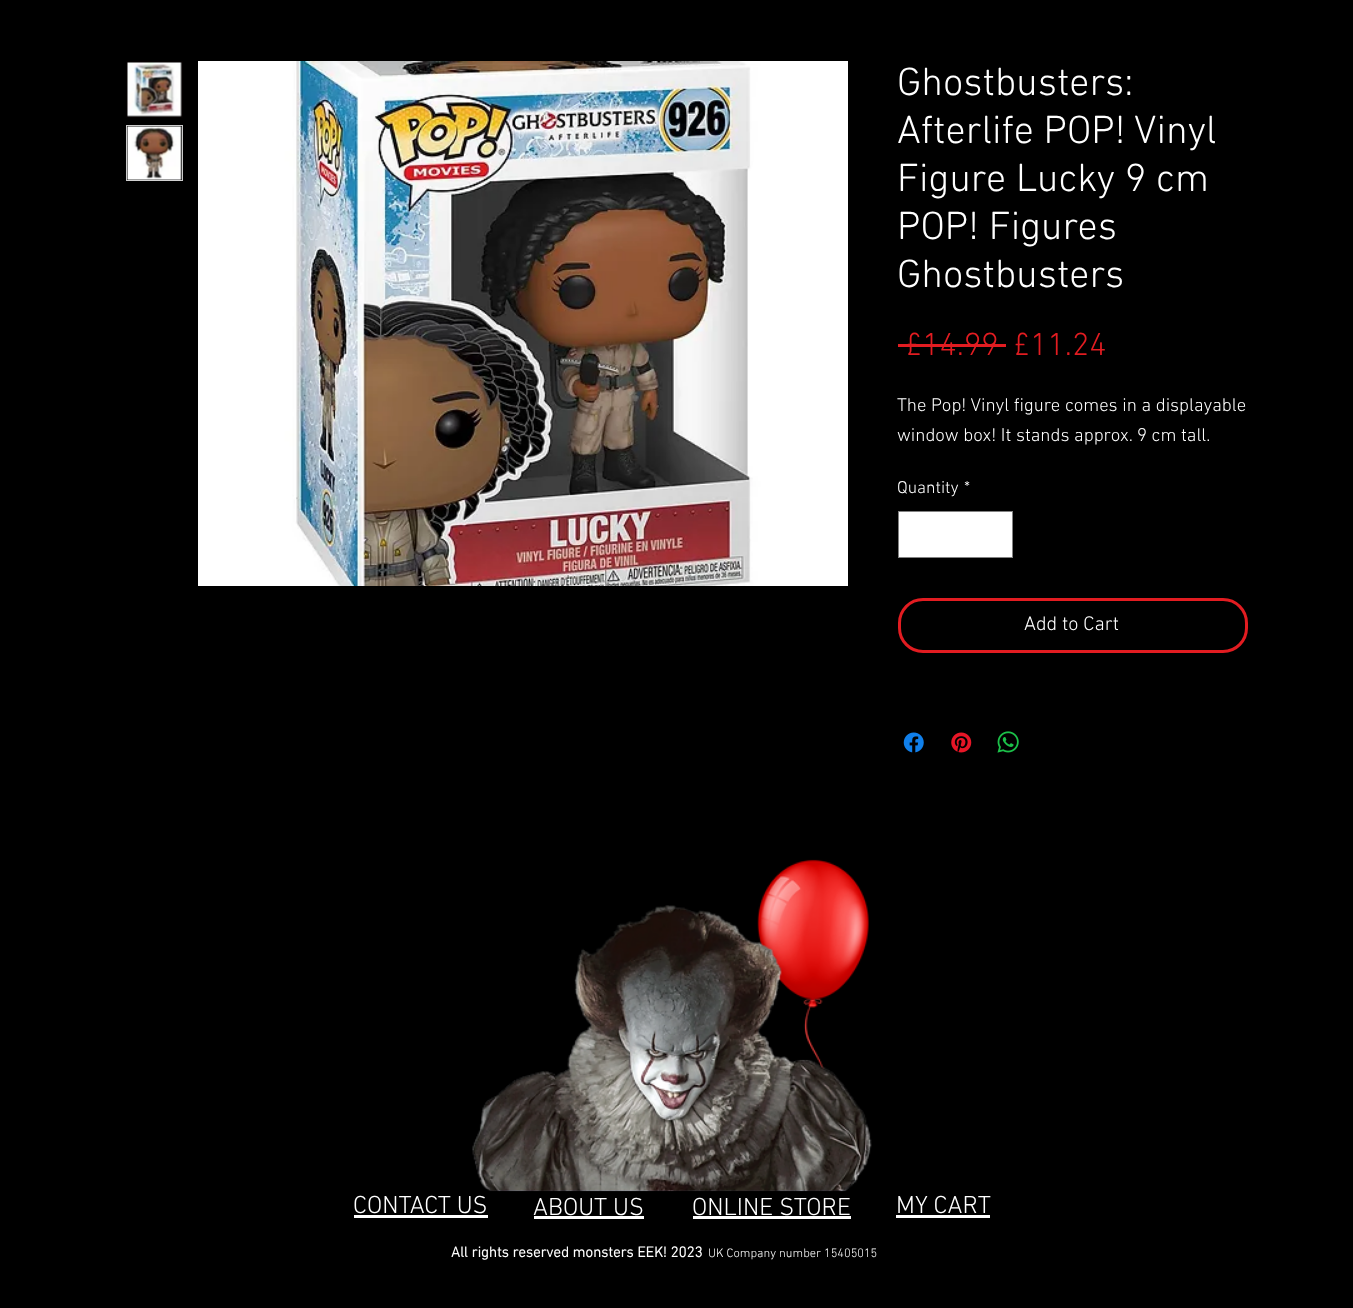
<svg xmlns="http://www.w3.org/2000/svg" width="1353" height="1308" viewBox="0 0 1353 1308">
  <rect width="100%" height="100%" fill="#000000"/>
  <rect x="126.5" y="61.5" width="56" height="56" fill="none" stroke="#050101"/>
  <image x="127" y="62" width="55" height="55" href="img1.png"/>
  <rect x="126.5" y="125.5" width="56" height="55" fill="none" stroke="#cccccc"/>
  <image x="127" y="126" width="55" height="55" href="img2.png"/>
  <image x="198" y="61" width="650" height="525" href="img3.png"/>
  <text x="897" y="95" font-family="'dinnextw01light'" font-size="40" font-weight="300" fill="#ffffff">Ghostbusters:</text>
  <text x="897" y="143" font-family="'dinnextw01light'" font-size="40" font-weight="300" fill="#ffffff">Afterlife POP! Vinyl</text>
  <text x="897" y="191" font-family="'dinnextw01light'" font-size="40" font-weight="300" fill="#ffffff">Figure Lucky 9 cm</text>
  <text x="897" y="239" font-family="'dinnextw01light'" font-size="40" font-weight="300" fill="#ffffff">POP! Figures</text>
  <text x="897" y="287" font-family="'dinnextw01light'" font-size="40" font-weight="300" fill="#ffffff">Ghostbusters</text>
  <text x="905" y="355" font-family="'dinnextw01light'" font-size="32.5" font-weight="300" fill="#e21c21">£14.99</text>
  <rect x="898" y="344" width="108" height="3" fill="#e21c21"/>
  <text x="1013" y="355" font-family="'dinnextw01light'" font-size="32.5" font-weight="300" fill="#e21c21">£11.24</text>
  <text x="897" y="411" font-family="'dinnextw01light'" font-size="18.75" font-weight="300" fill="#ffffff">The Pop! Vinyl figure comes in a displayable</text>
  <text x="897" y="441" font-family="'dinnextw01light'" font-size="18.75" font-weight="300" fill="#ffffff">window box! It stands approx. 9 cm tall.</text>
  <text x="897" y="493" font-family="'dinnextw01light'" font-size="17.5" font-weight="300" fill="#ffffff">Quantity</text>
  <text x="964" y="493" font-family="'dinnextw01light'" font-size="17.5" font-weight="300" fill="#ffffff">*</text>
  <rect x="898.5" y="511.5" width="114" height="46" fill="#ffffff" stroke="#828282"/>
  <rect x="899.5" y="599.5" width="347" height="52" rx="23.5" fill="none" stroke="#e21c21" stroke-width="3"/>
  <text x="1024" y="630" font-family="'dinnextw01light'" font-size="20" font-weight="300" fill="#ffffff">Add to Cart</text>
  <image x="903" y="732" width="21" height="21" href="img4.png"/>
  <image x="951" y="732" width="21" height="21" href="img5.png"/>
  <image x="997" y="731" width="22" height="22" href="img6.png"/>
  <image x="757" y="859" width="112" height="215" href="img7.png"/>
  <image x="472" y="905" width="400" height="287" href="img8.png"/>
  <text x="353" y="1213" font-family="'dinnextw01light'" font-size="25" font-weight="300" fill="#ffffff">CONTACT US</text>
  <rect x="354" y="1215" width="134" height="3" fill="#ffffff"/>
  <text x="533" y="1215" font-family="'dinnextw01light'" font-size="25" font-weight="300" fill="#ffffff">ABOUT US</text>
  <rect x="534" y="1216" width="110" height="3" fill="#ffffff"/>
  <text x="692" y="1215" font-family="'dinnextw01light'" font-size="25" font-weight="300" fill="#ffffff">ONLINE STORE</text>
  <rect x="693" y="1216" width="158" height="3" fill="#ffffff"/>
  <text x="896" y="1213" font-family="'dinnextw01light'" font-size="25" font-weight="300" fill="#ffffff">MY CART</text>
  <rect x="896" y="1215" width="94" height="3" fill="#ffffff"/>
  <text x="451" y="1257" font-family="'dinnextw01light'" font-size="15" font-weight="bold" fill="#ffffff">All rights reserved monsters EEK! 2023</text>
  <text x="708" y="1257" font-family="'dinnextw01light'" font-size="12.5" font-weight="300" fill="#ffffff">UK Company number 15405015</text>
</svg>
